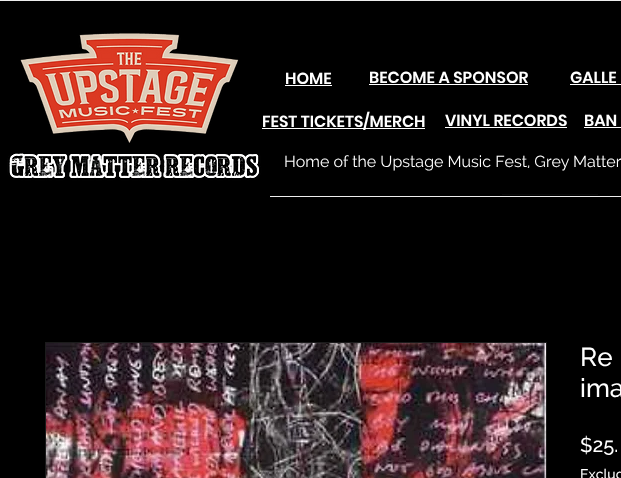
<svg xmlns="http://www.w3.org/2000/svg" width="621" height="478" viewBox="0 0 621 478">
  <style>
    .t1 { font: 600 16px Poppins; fill: #fff; }
    .t2 { font: 16px Raleway; fill: #fff; }
    .t3 { font: 500 26px Raleway; fill: #fff; }
    .t4 { font: 500 20px Raleway; fill: #fff; }
    .t5 { font: 500 14px Raleway; fill: #fff; }
  </style>
  <rect width="100%" height="100%" fill="#000"/>
  <rect x="0" y="0" width="621" height="1" fill="#ededed"/>
  <rect x="270" y="196" width="351" height="1" fill="#ededed"/>
  <image x="20" y="33" width="219" height="110" href="images/1.png"/>
  <text x="285" y="84" class="t1">HOME</text>
  <rect x="285" y="85" width="47" height="1" fill="#fff"/>
  <text x="369" y="83" class="t1">BECOME A SPONSOR</text>
  <rect x="369" y="84" width="159" height="1" fill="#fff"/>
  <text x="570" y="83" class="t1">GALLE</text>
  <rect x="570" y="84" width="51" height="1" fill="#fff"/>
  <rect x="262" y="128" width="163" height="1" fill="#fff"/>
  <text x="262" y="127" class="t1">FEST TICKETS/MERCH</text>
  <text x="445" y="126" class="t1">VINYL RECORDS</text>
  <rect x="445" y="127" width="122" height="1" fill="#fff"/>
  <text x="584" y="126" class="t1">BAN</text>
  <rect x="584" y="127" width="37" height="1" fill="#fff"/>
  <image x="0" y="153" width="270" height="44" href="images/2.png"/>
  <text x="284" y="167" class="t2">Home of the Upstage Music Fest, Grey Matter</text>
  <rect x="502" y="194" width="96" height="1" fill="#0a0a0a"/>
  <rect x="45.5" y="342.5" width="501" height="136" fill="none" stroke="#1b1b1b"/>
  <image x="46" y="343" width="500" height="135" href="images/3.png"/>
  <text x="580" y="366" class="t3">Re</text>
  <text x="580" y="397" class="t3">ima</text>
  <text x="580" y="452" class="t4">$25.</text>
  <text x="580" y="479" class="t5">Exclud</text>
</svg>
